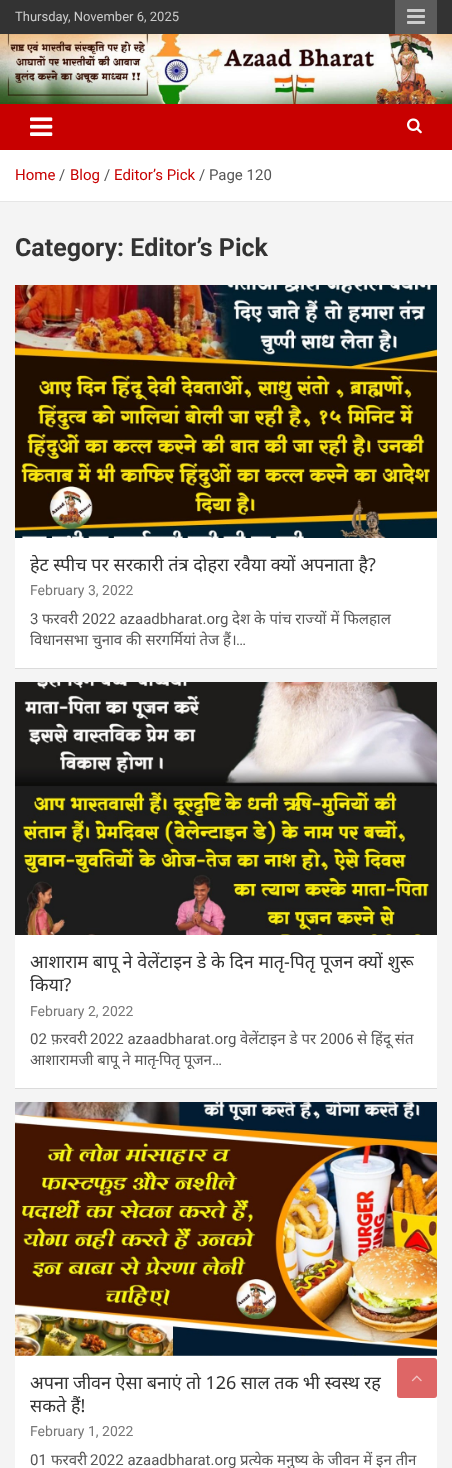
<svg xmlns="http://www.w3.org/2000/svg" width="452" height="1468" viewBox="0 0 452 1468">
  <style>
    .t1 { font: 13px Roboto; fill: #ccc; }
    .t2 { font: 15px Roboto; fill: #c80000; }
    .t3 { font: 15px Roboto; fill: #555; }
    .t4 { font: bold 25px Roboto; fill: #333; }
    .t5 { font: 18px Noto Sans; fill: #333; }
    .t6 { font: 14px Roboto; fill: #777; }
    .t7 { font: 15px Noto Sans; fill: #555; }
  </style>
  <rect width="100%" height="100%" fill="#f4f4f4"/>
  <rect x="0" y="0" width="452" height="34" fill="#333"/>
  <text x="15" y="21" class="t1">Thursday, November 6, 2025</text>
  <rect x="395" y="0" width="42" height="34" fill="#5c5c5c"/>
  <image x="407" y="9" width="18" height="15" href="images/1.png"/>
  <image x="0" y="34" width="452" height="70" href="images/2.png"/>
  <rect x="0" y="104" width="452" height="46" fill="#c80000"/>
  <image x="30" y="117" width="23" height="19" href="images/3.png"/>
  <image x="407" y="118" width="15" height="16" href="images/4.png"/>
  <rect x="0" y="150" width="452" height="51" fill="#fff"/>
  <rect x="0" y="201" width="452" height="1" fill="#e6e6e6"/>
  <text x="15" y="180" class="t2">Home</text>
  <text x="59" y="180" class="t3">/</text>
  <text x="70" y="180" class="t2">Blog</text>
  <text x="104" y="180" class="t3">/</text>
  <text x="114" y="180" class="t2">Editor’s Pick</text>
  <text x="199" y="180" class="t3">/ Page 120</text>
  <text x="15" y="256" class="t4">Category: Editor’s Pick</text>
  <rect x="15" y="286" width="422" height="383" fill="#0000001a" filter="blur(0.5px)"/>
  <rect x="15" y="538" width="422" height="130" fill="#fff"/>
  <image x="15" y="285" width="422" height="253" href="images/5.png"/>
  <text x="30" y="571" class="t5">हेट स्पीच पर सरकारी तंत्र दोहरा रवैया क्यों अपनाता है?</text>
  <text x="30" y="595" class="t6">February 3, 2022</text>
  <text x="30" y="624" class="t3">3</text>
  <text x="42" y="624" class="t7">फरवरी</text>
  <text x="82" y="624" class="t3">2022 azaadbharat.org</text>
  <text x="232" y="624" class="t7">देश के पांच राज्यों में फिलहाल</text>
  <text x="30" y="645" class="t7">विधानसभा चुनाव की सरगर्मियां तेज हैं।</text>
  <text x="236" y="645" class="t3">…</text>
  <rect x="15" y="683" width="422" height="406" fill="#0000001a" filter="blur(0.5px)"/>
  <rect x="15" y="935" width="422" height="153" fill="#fff"/>
  <image x="15" y="682" width="422" height="253" href="images/6.png"/>
  <text x="30" y="968" class="t5">आशाराम बापू ने वेलेंटाइन डे के दिन मातृ-पितृ पूजन क्यों शुरू</text>
  <text x="30" y="991" class="t5">किया?</text>
  <text x="30" y="1016" class="t6">February 2, 2022</text>
  <text x="30" y="1044" class="t3">02</text>
  <text x="51" y="1044" class="t7">फ़रवरी</text>
  <text x="90" y="1044" class="t3">2022 azaadbharat.org</text>
  <text x="240" y="1044" class="t7">वेलेंटाइन डे पर</text>
  <text x="320" y="1044" class="t3">2006</text>
  <text x="357" y="1044" class="t7">से हिंदू संत</text>
  <text x="30" y="1065" class="t7">आशारामजी बापू ने मातृ</text>
  <text x="155" y="1065" class="t3">-</text>
  <text x="159" y="1065" class="t7">पितृ पूजन</text>
  <text x="212" y="1065" class="t3">…</text>
  <rect x="15" y="1355" width="422" height="113" fill="#fff"/>
  <image x="15" y="1102" width="422" height="254" href="images/7.png"/>
  <text x="30" y="1389" word-spacing="-0.25" class="t5">अपना जीवन ऐसा बनाएं तो 126 साल तक भी स्वस्थ रह</text>
  <text x="30" y="1412" class="t5">सकते हैं!</text>
  <text x="30" y="1436" class="t6">February 1, 2022</text>
  <text x="30" y="1465" class="t3">01</text>
  <text x="51" y="1465" class="t7">फरवरी</text>
  <text x="90" y="1465" class="t3">2022 azaadbharat.org</text>
  <text x="240" y="1465" class="t7">प्रत्येक मनुष्य के जीवन में इन तीन</text>
  <rect x="397" y="1358" width="40" height="40" rx="3" fill="#de6666"/>
  <image x="411" y="1375" width="11" height="7" href="images/8.png"/>
</svg>
